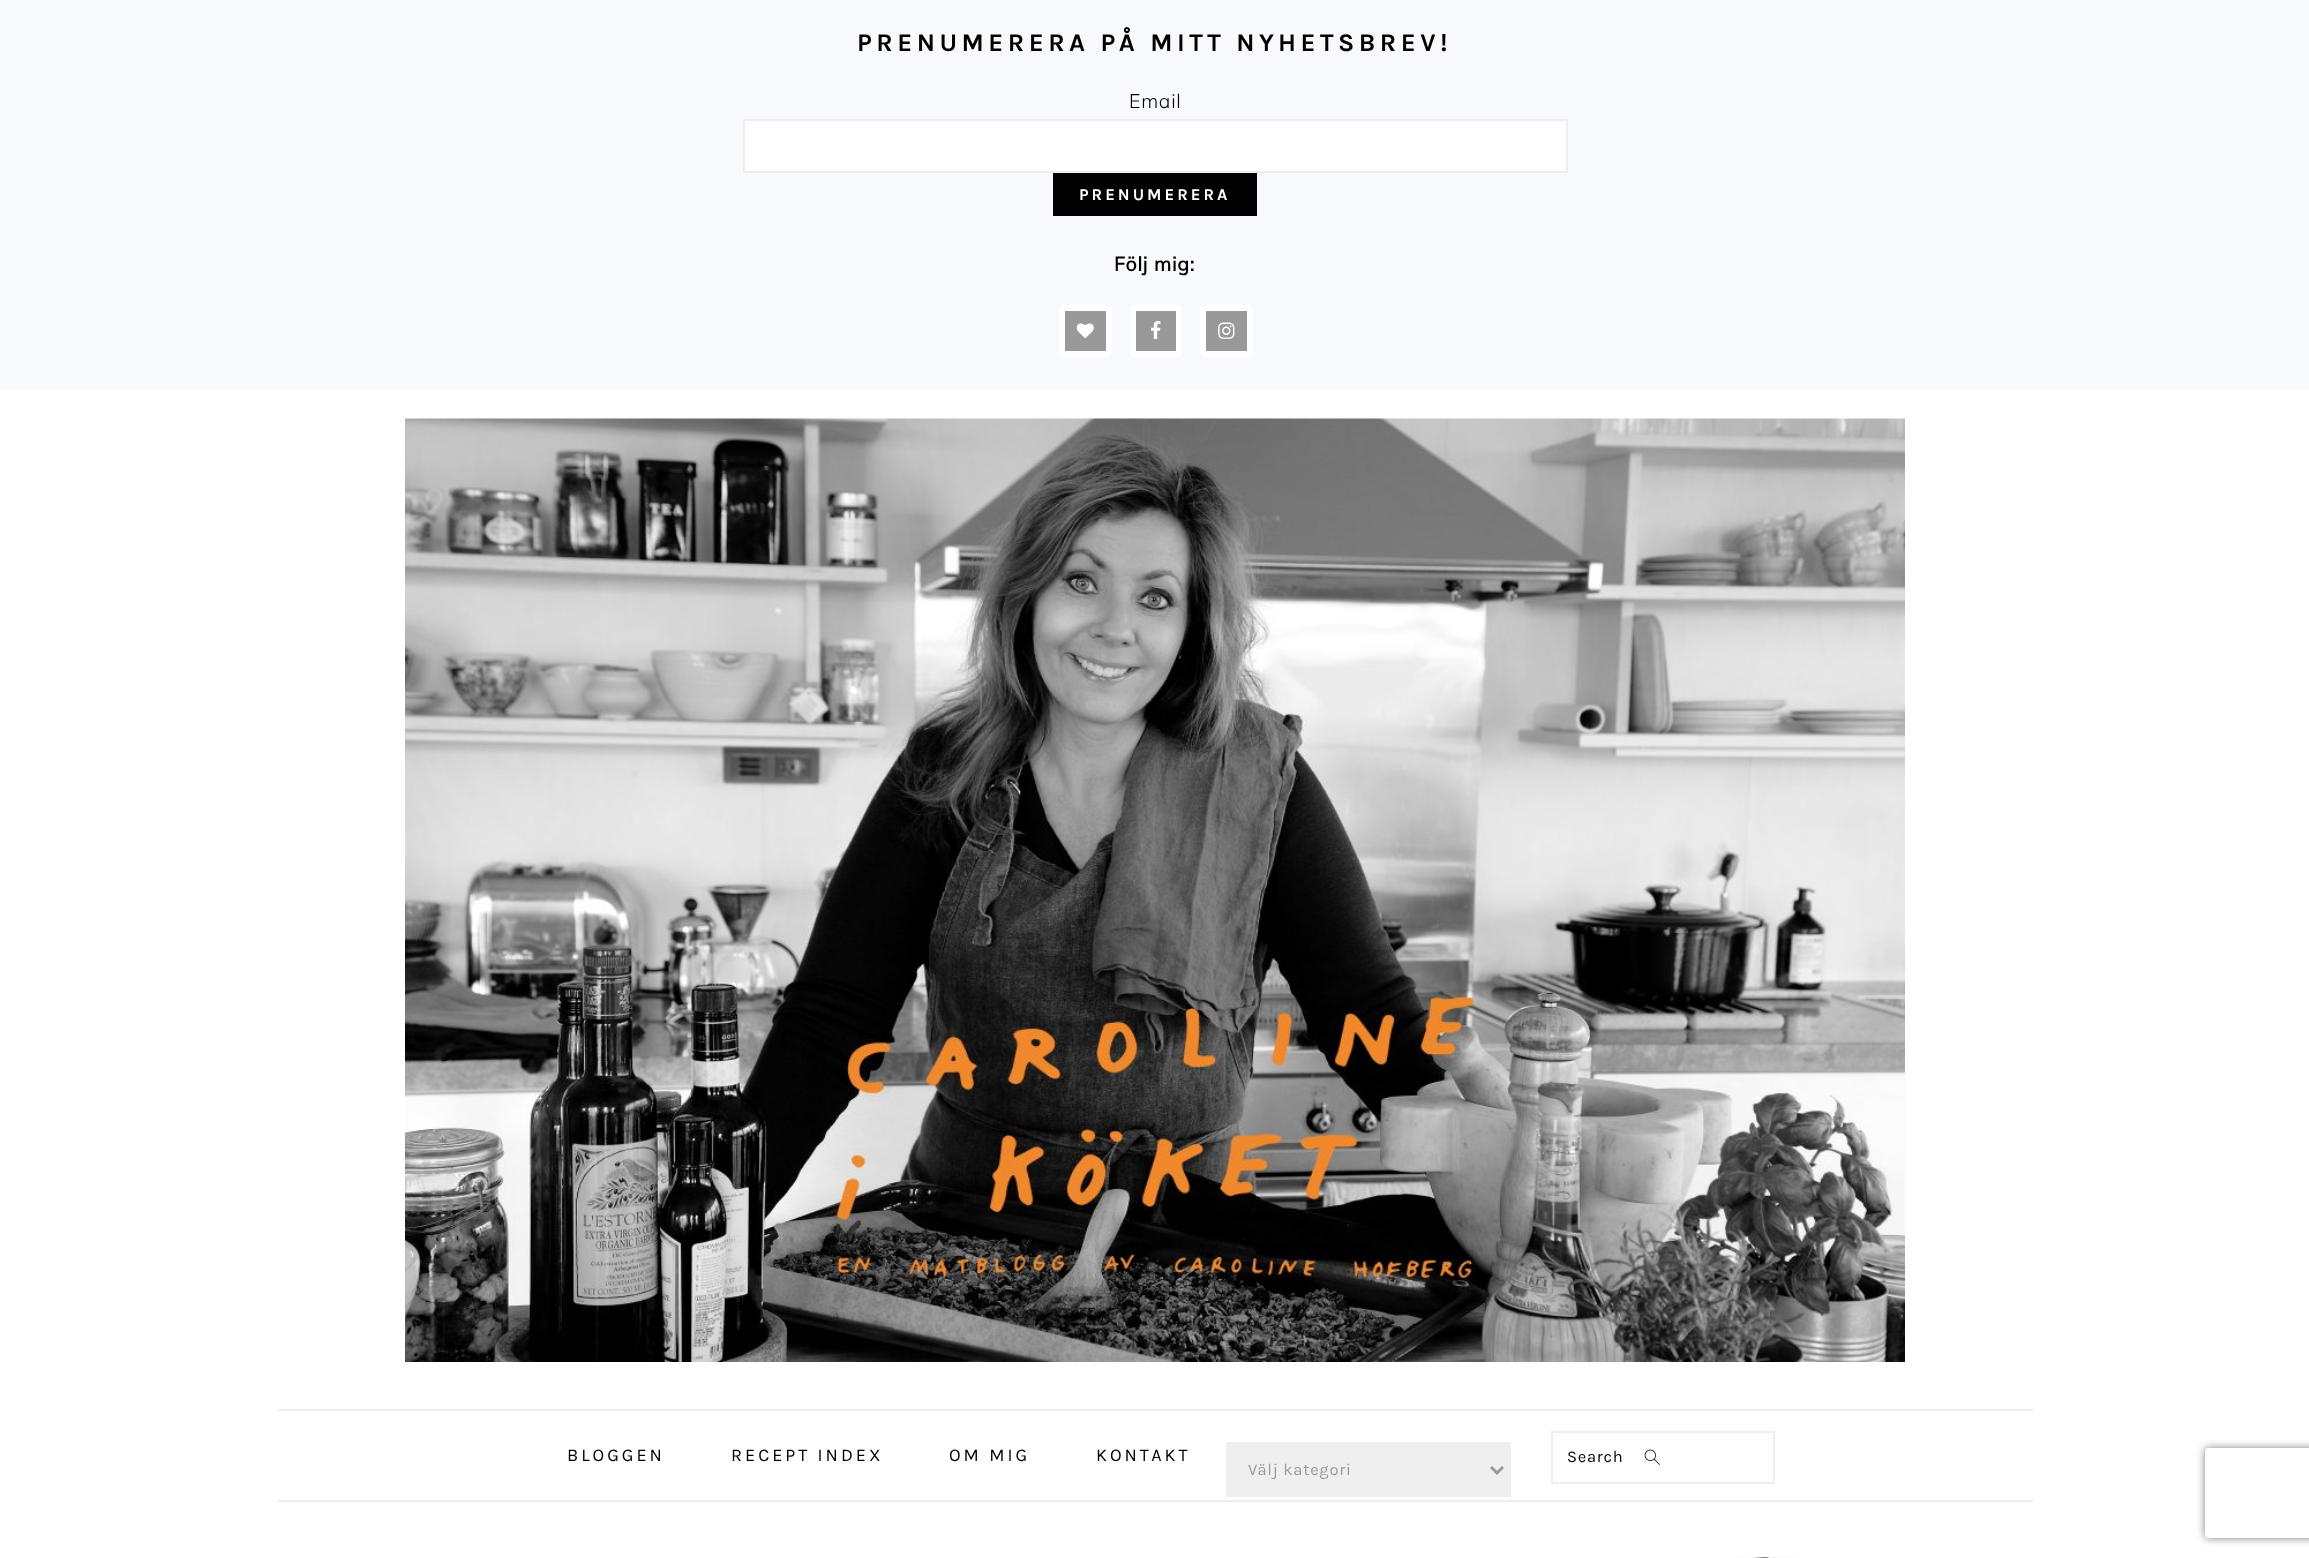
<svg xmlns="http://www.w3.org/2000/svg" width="2309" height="1558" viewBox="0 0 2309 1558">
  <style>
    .t1 { font: bold 25.5px Karla; letter-spacing: 4.5px; fill: #000; }
    .t2 { font: 300 19.5px Muli; letter-spacing: 0.75px; fill: #000; }
    .t3 { font: bold 16.5px Karla; letter-spacing: 3px; fill: #fff; }
    .t4 { font: bold 19.5px Muli; letter-spacing: 0.75px; fill: #000; }
    .t5 { font: 18px Karla; letter-spacing: 3px; fill: #000; }
    .t6 { font: 16.5px Karla; letter-spacing: 0.75px; fill: #000; }
    .t7 { font: 16.5px Karla; letter-spacing: 0.75px; fill: #999; }
  </style>
  <defs>
    <clipPath id="clip1"><path d="M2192 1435H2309V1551H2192ZM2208 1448H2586C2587.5 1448 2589 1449.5 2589 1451V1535C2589 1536.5 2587.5 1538 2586 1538H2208C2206.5 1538 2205 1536.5 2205 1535V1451C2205 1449.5 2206.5 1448 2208 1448Z" clip-rule="evenodd"/></clipPath>
  </defs>
  <rect width="100%" height="100%" fill="#fff"/>
  <rect x="0" y="0" width="2309" height="390" fill="#f7f9fc"/>
  <text x="857" y="51" class="t1">PRENUMERERA PÅ MITT NYHETSBREV!</text>
  <text x="1129" y="108" class="t2">Email</text>
  <rect x="744" y="120" width="823" height="52" fill="#fff" stroke="#eee" stroke-width="2"/>
  <rect x="1053" y="173" width="204" height="43" fill="#010101"/>
  <text x="1079" y="200" class="t3">PRENUMERERA</text>
  <text x="1114" y="271" class="t4">Följ mig:</text>
  <rect x="1062" y="308" width="47" height="46" rx="2" fill="#999" stroke="#fff" stroke-width="6"/>
  <image x="1076" y="323" width="18" height="15" href="images/1.png"/>
  <rect x="1133" y="308" width="46" height="46" rx="2" fill="#999" stroke="#fff" stroke-width="6"/>
  <image x="1151" y="321" width="10" height="18" href="images/2.png"/>
  <rect x="1203" y="308" width="47" height="46" rx="2" fill="#999" stroke="#fff" stroke-width="6"/>
  <image x="1218" y="322" width="17" height="17" href="images/3.png"/>
  <image x="405" y="418" width="1500" height="944" href="images/4.png"/>
  <rect x="278" y="1409" width="1755" height="2" fill="#eee"/>
  <rect x="278" y="1500" width="1755" height="2" fill="#eee"/>
  <text x="567" y="1461" class="t5">BLOGGEN</text>
  <text x="731" y="1461" class="t5">RECEPT INDEX</text>
  <text x="949" y="1461" class="t5">OM MIG</text>
  <text x="1096" y="1461" class="t5">KONTAKT</text>
  <rect x="1552" y="1432" width="222" height="51" fill="none" stroke="#eee" stroke-width="2"/>
  <image x="1644" y="1449" width="16" height="16" href="images/5.png"/>
  <text x="1567" y="1462" class="t6">Search</text>
  <rect x="1226" y="1442" width="285" height="55" fill="#efefef"/>
  <path d="M1491 1467L1497 1473L1503 1467" fill="none" stroke="#999" stroke-width="3"/>
  <text x="1248" y="1475" class="t7">Välj kategori</text>
  <image x="1737" y="1557" width="60" height="1" href="images/6.png"/>
  <g clip-path="url(#clip1)">
    <rect x="2205" y="1448" width="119" height="90" rx="3" fill="#808080" filter="blur(4px)"/>
  </g>
</svg>
